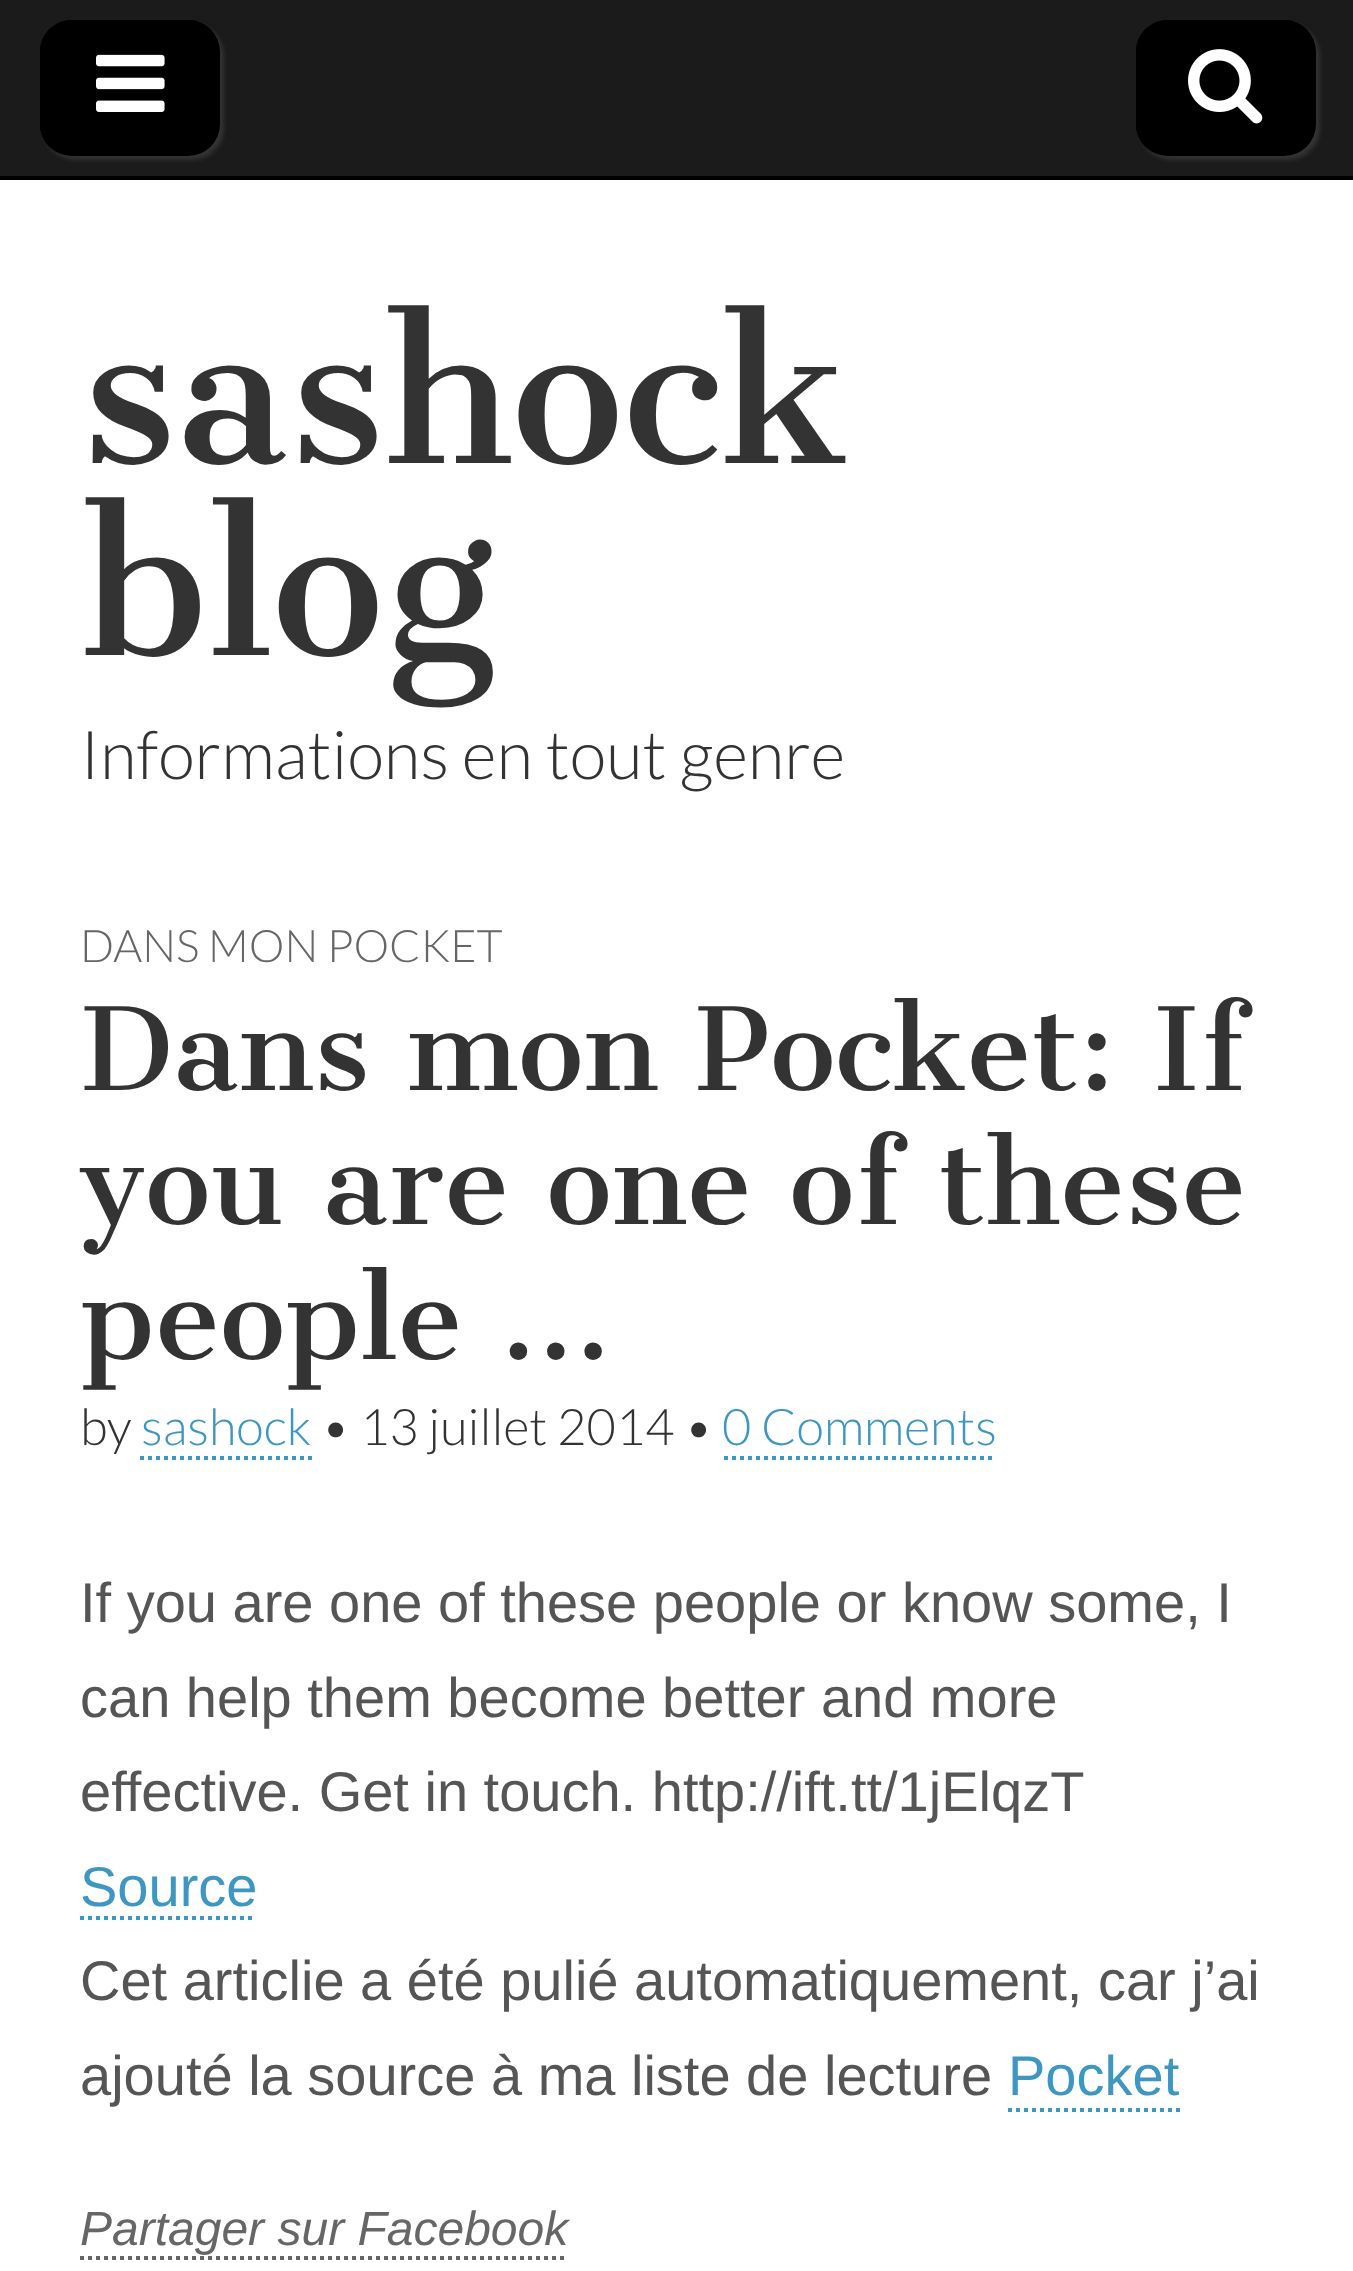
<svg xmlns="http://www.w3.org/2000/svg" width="1353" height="2271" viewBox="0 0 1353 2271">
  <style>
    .t1 { font: 192px Cantata One; fill: #333; }
    .t2 { font: 300 67.25px Lato; fill: #333; }
    .t3 { font: 300 44.75px Lato; fill: #666; }
    .t4 { font: 112px Cantata One; fill: #333; }
    .t5 { font: 300 50.5px Lato; fill: #333; }
    .t6 { font: 300 50.5px Lato; fill: #3d97c2; }
    .t7 { font: 56px Liberation Sans; fill: #555; }
    .t8 { font: 56px Liberation Sans; fill: #3d97c2; }
    .t9 { font: italic 48px Liberation Sans; fill: #666; }
  </style>
  <rect width="100%" height="100%" fill="#fff"/>
  <rect x="0" y="0" width="1353" height="176" fill="#1b1b1b"/>
  <rect x="0" y="176" width="1353" height="4" fill="#000"/>
  <rect x="44" y="24" width="180" height="136" rx="32" fill="#333" filter="blur(2px)"/>
  <rect x="40" y="20" width="180" height="136" rx="32" fill="#000"/>
  <path d="M76 24H192C200 24 206 27 212 31C206 24 198 20 188 20H72C54 20 40 34 40 52V124C40 134 44 142 51 148C47 142 44 136 44 128V56C44 38 58 24 76 24Z" fill="#000"/>
  <image x="96" y="54" width="69" height="58" href="images/1.png"/>
  <rect x="1140" y="24" width="180" height="136" rx="32" fill="#333" filter="blur(2px)"/>
  <rect x="1136" y="20" width="180" height="136" rx="32" fill="#000"/>
  <path d="M1172 24H1288C1296 24 1302 27 1308 31C1302 24 1294 20 1284 20H1168C1150 20 1136 34 1136 52V124C1136 134 1140 142 1147 148C1143 142 1140 136 1140 128V56C1140 38 1154 24 1172 24Z" fill="#000"/>
  <image x="1188" y="49" width="75" height="75" href="images/2.png"/>
  <text x="80" y="463" class="t1">sashock</text>
  <text x="80" y="655" class="t1">blog</text>
  <text x="80" y="779" class="t2">Informations en tout genre</text>
  <text x="80" y="962" class="t3">DANS MON POCKET</text>
  <text x="80" y="1090" class="t4">Dans mon Pocket: If</text>
  <text x="80" y="1224" class="t4">you are one of these</text>
  <text x="80" y="1359" class="t4">people …</text>
  <text x="80" y="1445" class="t5">by</text>
  <text x="141" y="1445" class="t6">sashock</text>
  <path d="M140 1458H312" fill="none" stroke="#3d97c2" stroke-width="4" stroke-dasharray="4 4"/>
  <text x="321" y="1445" class="t5">• 13 juillet 2014 •</text>
  <text x="722" y="1445" class="t6">0 Comments</text>
  <path d="M724 1458H996" fill="none" stroke="#3d97c2" stroke-width="4" stroke-dasharray="4 4"/>
  <text x="80" y="1622" class="t7">If you are one of these people or know some, I</text>
  <text x="80" y="1717" class="t7">can help them become better and more</text>
  <text x="80" y="1811" class="t7">effective. Get in touch. http://ift.tt/1jElqzT</text>
  <text x="80" y="1906" class="t8">Source</text>
  <path d="M80 1918H256" fill="none" stroke="#3d97c2" stroke-width="4" stroke-dasharray="4 4"/>
  <text x="80" y="2000" class="t7">Cet articlie a été pulié automatiquement, car j’ai</text>
  <text x="80" y="2095" class="t7">ajouté la source à ma liste de lecture</text>
  <text x="1008" y="2095" class="t8">Pocket</text>
  <path d="M1008 2110H1180" fill="none" stroke="#3d97c2" stroke-width="4" stroke-dasharray="4 4"/>
  <text x="80" y="2245" class="t9">Partager sur Facebook</text>
  <path d="M80 2258H568" fill="none" stroke="#666" stroke-width="4" stroke-dasharray="4 4"/>
</svg>
